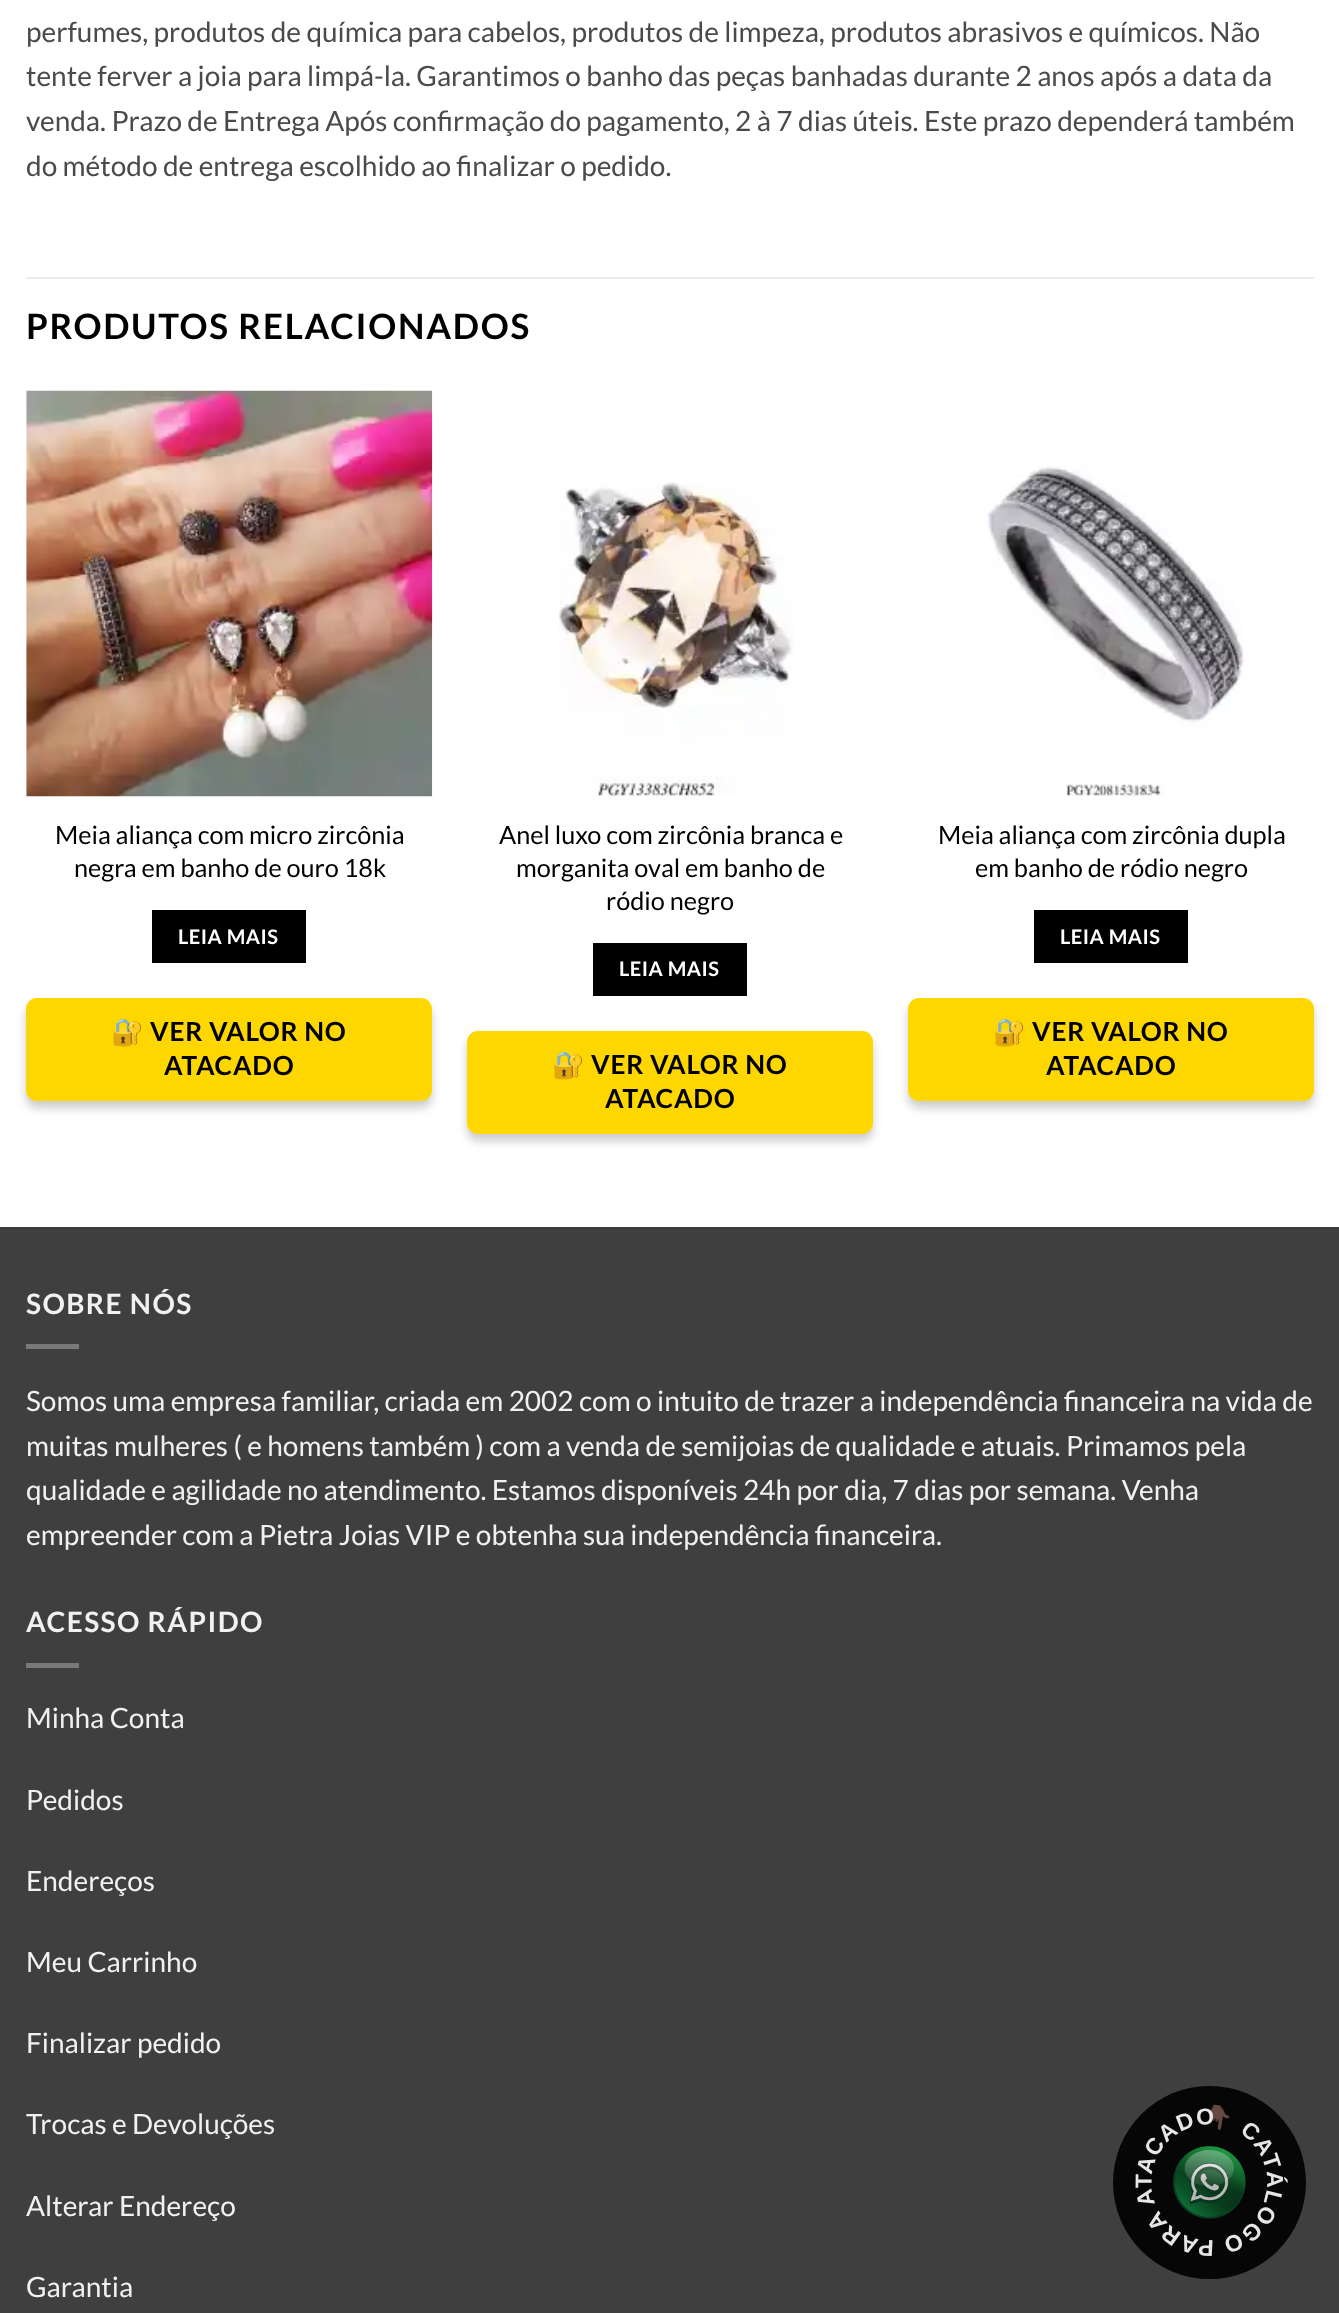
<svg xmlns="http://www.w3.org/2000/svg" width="1339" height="2313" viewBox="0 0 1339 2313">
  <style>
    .t1 { font: 28px Lato; fill: #4a4a4a; }
    .t2 { font: bold 35px Lato; letter-spacing: 1.75px; fill: #000; }
    .t3 { font: 25.25px Lato; fill: #000; }
    .t4 { font: bold 20px Lato; letter-spacing: 0.5px; fill: #fff; }
    .t5 { font: bold 26.25px Noto Color Emoji; letter-spacing: 0.75px; fill: #000; }
    .t6 { font: bold 26.25px Lato; letter-spacing: 0.75px; fill: #000; }
    .t7 { font: bold 28px Lato; letter-spacing: 1.4px; fill: #f1f1f1; }
    .t8 { font: 28px Lato; fill: #f1f1f1; }
  </style>
  <rect width="100%" height="100%" fill="#fff"/>
  <text x="26" y="42" class="t1">perfumes, produtos de química para cabelos, produtos de limpeza, produtos abrasivos e químicos. Não</text>
  <text x="26" y="86" class="t1">tente ferver a joia para limpá-la. Garantimos o banho das peças banhadas durante 2 anos após a data da</text>
  <text x="26" y="131" class="t1">venda. Prazo de Entrega Após confirmação do pagamento, 2 à 7 dias úteis. Este prazo dependerá também</text>
  <text x="26" y="176" class="t1">do método de entrega escolhido ao finalizar o pedido.</text>
  <rect x="26" y="277" width="1288" height="2" fill="#ececec"/>
  <text x="26" y="339" class="t2">PRODUTOS RELACIONADOS</text>
  <image x="26" y="390" width="407" height="407" href="images/1.png"/>
  <text x="55" y="844" class="t3">Meia aliança com micro zircônia</text>
  <text x="74" y="877" class="t3">negra em banho de ouro 18k</text>
  <rect x="152" y="910" width="154" height="53" fill="#000"/>
  <text x="178" y="944" class="t4">LEIA MAIS</text>
  <rect x="26" y="1005" width="406" height="103" rx="11" fill="#00000033" filter="blur(5px)"/>
  <rect x="26" y="998" width="406" height="103" rx="11" fill="#ffd700"/>
  <text x="111" y="1041" class="t5">🔐</text>
  <text x="150" y="1041" class="t6">VER VALOR NO</text>
  <text x="164" y="1075" class="t6">ATACADO</text>
  <image x="559" y="482" width="235" height="315" href="images/2.png"/>
  <text x="499" y="844" class="t3">Anel luxo com zircônia branca e</text>
  <text x="516" y="877" class="t3">morganita oval em banho de</text>
  <text x="606" y="910" class="t3">ródio negro</text>
  <rect x="593" y="943" width="154" height="53" fill="#000"/>
  <text x="619" y="976" class="t4">LEIA MAIS</text>
  <rect x="467" y="1038" width="406" height="103" rx="11" fill="#00000033" filter="blur(5px)"/>
  <rect x="467" y="1031" width="406" height="103" rx="11" fill="#ffd700"/>
  <text x="552" y="1074" class="t5">🔐</text>
  <text x="591" y="1074" class="t6">VER VALOR NO</text>
  <text x="605" y="1108" class="t6">ATACADO</text>
  <image x="987" y="465" width="257" height="332" href="images/3.png"/>
  <text x="938" y="844" class="t3">Meia aliança com zircônia dupla</text>
  <text x="975" y="877" class="t3">em banho de ródio negro</text>
  <rect x="1034" y="910" width="154" height="53" fill="#000"/>
  <text x="1060" y="944" class="t4">LEIA MAIS</text>
  <rect x="908" y="1005" width="406" height="103" rx="11" fill="#00000033" filter="blur(5px)"/>
  <rect x="908" y="998" width="406" height="103" rx="11" fill="#ffd700"/>
  <text x="993" y="1041" class="t5">🔐</text>
  <text x="1032" y="1041" class="t6">VER VALOR NO</text>
  <text x="1046" y="1075" class="t6">ATACADO</text>
  <rect x="0" y="1229" width="1339" height="1084" fill="#3f3f3f"/>
  <rect x="0" y="1227" width="1339" height="2" fill="#3c3c3c"/>
  <text x="26" y="1314" class="t7">SOBRE NÓS</text>
  <rect x="26" y="1344" width="53" height="5" fill="#797979"/>
  <text x="26" y="1411" class="t8">Somos uma empresa familiar, criada em 2002 com o intuito de trazer a independência financeira na vida de</text>
  <text x="26" y="1456" class="t8">muitas mulheres ( e homens também ) com a venda de semijoias de qualidade e atuais. Primamos pela</text>
  <text x="26" y="1500" class="t8">qualidade e agilidade no atendimento. Estamos disponíveis 24h por dia, 7 dias por semana. Venha</text>
  <text x="26" y="1545" class="t8">empreender com a Pietra Joias VIP e obtenha sua independência financeira.</text>
  <text x="26" y="1632" class="t7">ACESSO RÁPIDO</text>
  <rect x="26" y="1663" width="53" height="5" fill="#797979"/>
  <text x="26" y="1728" class="t8">Minha Conta</text>
  <text x="26" y="1810" class="t8">Pedidos</text>
  <text x="26" y="1891" class="t8">Endereços</text>
  <text x="26" y="1972" class="t8">Meu Carrinho</text>
  <text x="26" y="2053" class="t8">Finalizar pedido</text>
  <text x="26" y="2134" class="t8">Trocas e Devoluções</text>
  <text x="26" y="2216" class="t8">Alterar Endereço</text>
  <text x="26" y="2297" class="t8">Garantia</text>
  <circle cx="1209.5" cy="2182.5" r="96.5" fill="#060606"/>
  <image x="1135" y="2104" width="153" height="152" href="images/4.png"/>
  <image x="1173" y="2146" width="73" height="73" href="images/5.png"/>
</svg>
